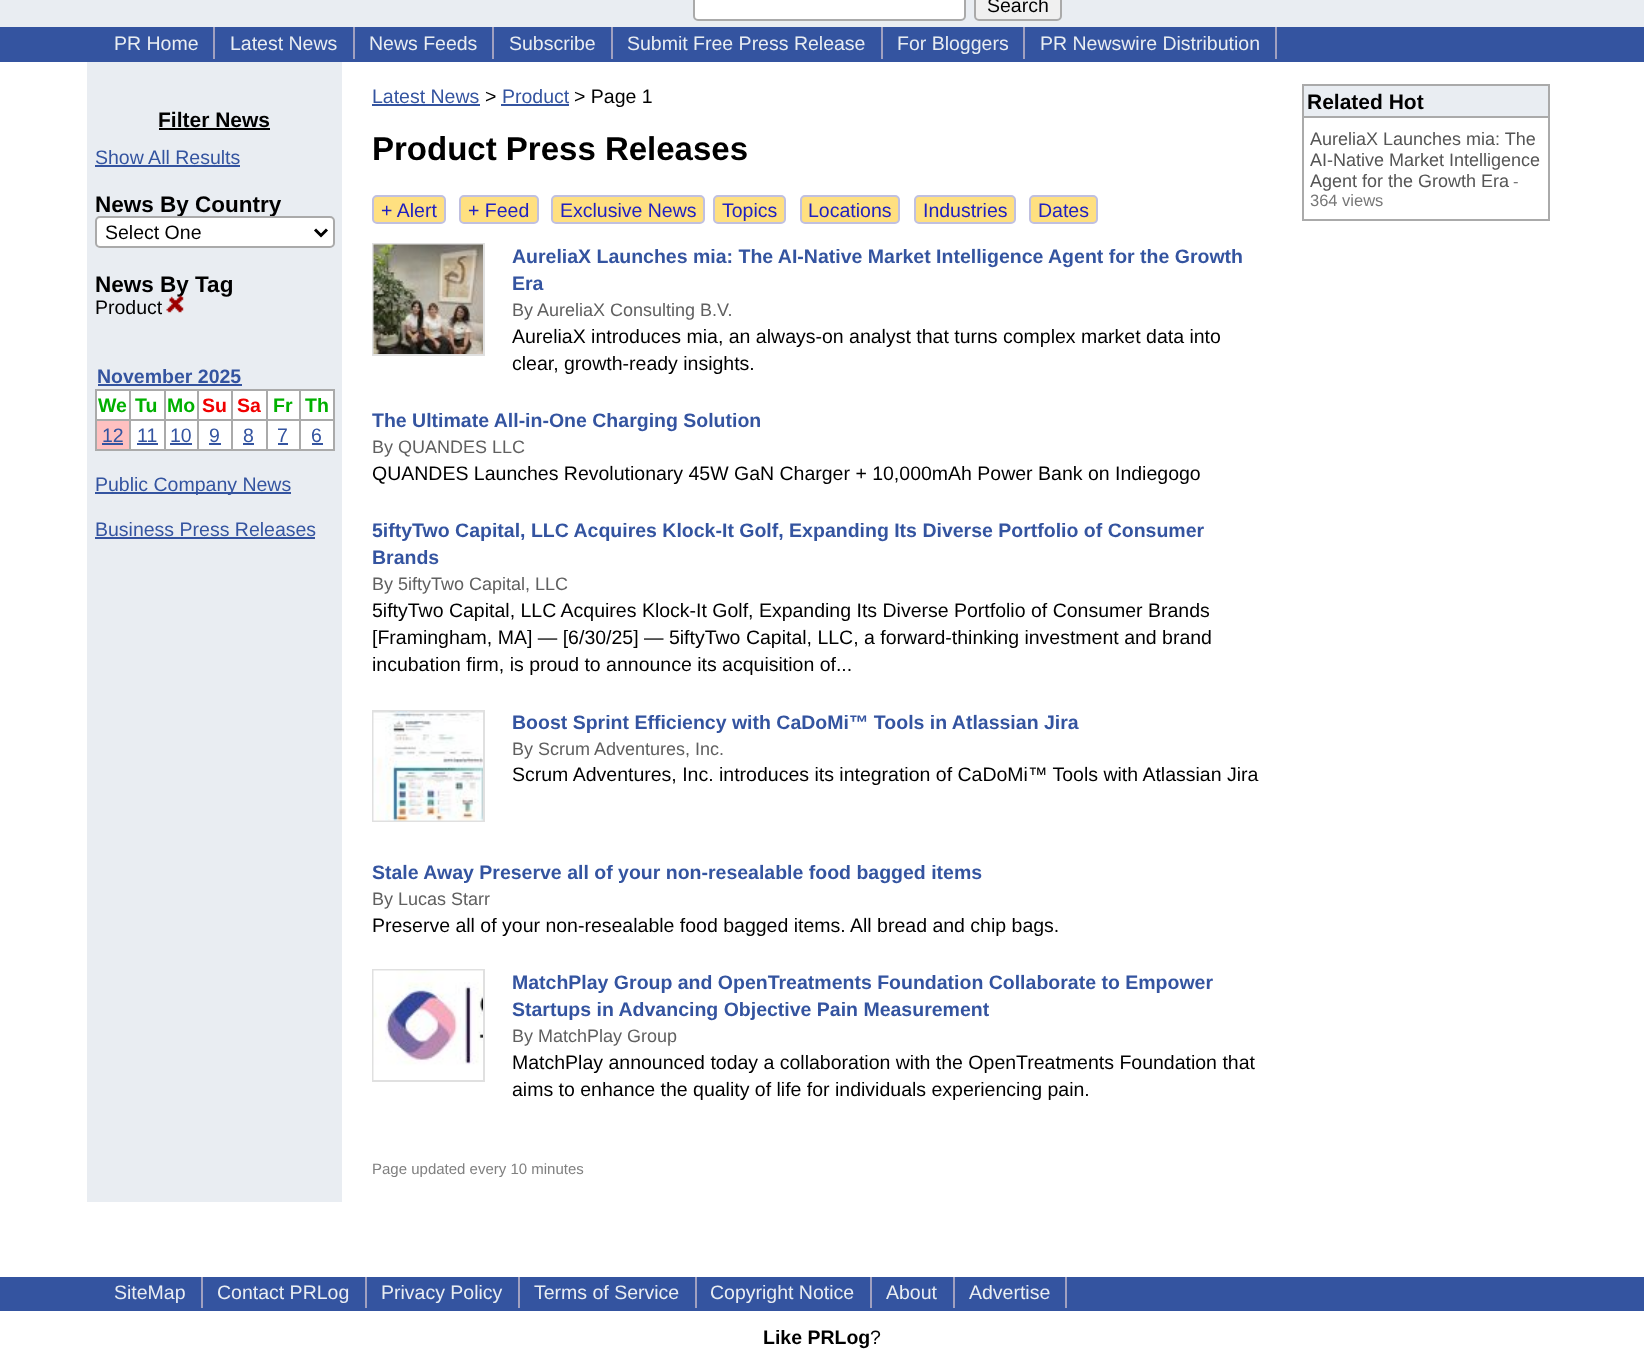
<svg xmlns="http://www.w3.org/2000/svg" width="1644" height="1359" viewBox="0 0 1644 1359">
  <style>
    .t1 { font: 19.5px Liberation Sans; fill: #000; }
    .t2 { font: 19.5px Liberation Sans; fill: #e9edf2; }
    .t3 { font: bold 21px Liberation Sans; fill: #000; }
    .t4 { font: 19.5px Liberation Sans; fill: #3454a0; }
    .t5 { font: bold 22.5px Liberation Sans; fill: #000; }
    .t6 { font: bold 19.5px Liberation Sans; fill: #3454a0; }
    .t7 { font: bold 19.5px Liberation Sans; fill: #00b000; }
    .t8 { font: bold 19.5px Liberation Sans; fill: #f00000; }
    .t9 { font: bold 33px Liberation Sans; fill: #000; }
    .t10 { font: 19.5px Liberation Sans; fill: #2020c0; }
    .t11 { font: 18px Liberation Sans; fill: #606060; }
    .t12 { font: 15px Liberation Sans; fill: #808080; }
    .t13 { font: 18px Liberation Sans; fill: #555; }
    .t14 { font: 16.5px Liberation Sans; fill: #777; }
    .t15 { font: bold 19.5px Liberation Sans; fill: #000; }
  </style>
  <rect width="100%" height="100%" fill="#fff"/>
  <rect x="0" y="0" width="1644" height="27" fill="#e9edf2"/>
  <rect x="694" y="-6" width="271" height="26" rx="4" fill="#fff" stroke="#aaa" stroke-width="2"/>
  <rect x="975" y="-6" width="86" height="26" rx="4" fill="#f0f0f0" stroke="#aaa" stroke-width="2"/>
  <text x="987" y="12" class="t1">Search</text>
  <rect x="0" y="27" width="1644" height="35" fill="#3454a0"/>
  <rect x="213" y="27" width="2" height="32" fill="#a0a0c0"/>
  <text x="114" y="50" class="t2">PR Home</text>
  <rect x="353" y="27" width="2" height="32" fill="#a0a0c0"/>
  <text x="230" y="50" class="t2">Latest News</text>
  <rect x="492" y="27" width="2" height="32" fill="#a0a0c0"/>
  <text x="369" y="50" class="t2">News Feeds</text>
  <rect x="611" y="27" width="2" height="32" fill="#a0a0c0"/>
  <text x="509" y="50" class="t2">Subscribe</text>
  <rect x="881" y="27" width="2" height="32" fill="#a0a0c0"/>
  <text x="627" y="50" class="t2">Submit Free Press Release</text>
  <rect x="1023" y="27" width="2" height="32" fill="#a0a0c0"/>
  <text x="897" y="50" class="t2">For Bloggers</text>
  <rect x="1275" y="27" width="2" height="32" fill="#a0a0c0"/>
  <text x="1040" y="50" class="t2">PR Newswire Distribution</text>
  <rect x="87" y="62" width="255" height="1140" fill="#e9edf2"/>
  <text x="158" y="127" class="t3">Filter News</text>
  <rect x="159" y="128" width="111" height="2" fill="#000"/>
  <text x="95" y="164" class="t4">Show All Results</text>
  <rect x="95" y="165" width="145" height="2" fill="#3454a0"/>
  <text x="95" y="212" class="t5">News By Country</text>
  <rect x="96" y="217" width="238" height="30" rx="4" fill="#fff" stroke="#aaa" stroke-width="2"/>
  <path d="M315 229.5L321 235.5L327 229.5" fill="none" stroke="#000" stroke-width="3"/>
  <text x="105" y="239" class="t1">Select One</text>
  <text x="95" y="292" class="t5">News By Tag</text>
  <text x="95" y="314" class="t1">Product</text>
  <image x="166" y="295" width="18" height="18" href="images/1.png"/>
  <text x="97" y="383" class="t6">November 2025</text>
  <rect x="98" y="384" width="144" height="2" fill="#3454a0"/>
  <rect x="97" y="391" width="32" height="28" fill="#fff"/>
  <rect x="299" y="389" width="36" height="2" fill="#aaa"/>
  <rect x="299" y="419" width="36" height="2" fill="#aaa"/>
  <rect x="333" y="419" width="2" height="31" fill="#aaa"/>
  <rect x="299" y="449" width="36" height="2" fill="#aaa"/>
  <rect x="299" y="419" width="2" height="31" fill="#aaa"/>
  <rect x="266" y="419" width="34" height="2" fill="#aaa"/>
  <rect x="299" y="389" width="2" height="31" fill="#aaa"/>
  <rect x="266" y="389" width="34" height="2" fill="#aaa"/>
  <rect x="266" y="449" width="34" height="2" fill="#aaa"/>
  <rect x="266" y="419" width="2" height="31" fill="#aaa"/>
  <rect x="231" y="419" width="36" height="2" fill="#aaa"/>
  <rect x="266" y="389" width="2" height="31" fill="#aaa"/>
  <rect x="231" y="389" width="36" height="2" fill="#aaa"/>
  <rect x="231" y="449" width="36" height="2" fill="#aaa"/>
  <rect x="231" y="419" width="2" height="31" fill="#aaa"/>
  <rect x="197" y="419" width="36" height="2" fill="#aaa"/>
  <rect x="231" y="389" width="2" height="31" fill="#aaa"/>
  <rect x="197" y="389" width="36" height="2" fill="#aaa"/>
  <rect x="197" y="449" width="36" height="2" fill="#aaa"/>
  <rect x="197" y="419" width="2" height="31" fill="#aaa"/>
  <rect x="164" y="419" width="34" height="2" fill="#aaa"/>
  <rect x="197" y="389" width="2" height="31" fill="#aaa"/>
  <rect x="164" y="389" width="34" height="2" fill="#aaa"/>
  <rect x="164" y="449" width="34" height="2" fill="#aaa"/>
  <rect x="164" y="419" width="2" height="31" fill="#aaa"/>
  <rect x="129" y="419" width="36" height="2" fill="#aaa"/>
  <rect x="164" y="389" width="2" height="31" fill="#aaa"/>
  <rect x="129" y="389" width="36" height="2" fill="#aaa"/>
  <rect x="129" y="449" width="36" height="2" fill="#aaa"/>
  <rect x="129" y="419" width="2" height="31" fill="#aaa"/>
  <rect x="95" y="419" width="36" height="2" fill="#aaa"/>
  <rect x="129" y="389" width="2" height="31" fill="#aaa"/>
  <rect x="95" y="389" width="36" height="2" fill="#aaa"/>
  <rect x="95" y="449" width="36" height="2" fill="#aaa"/>
  <rect x="95" y="419" width="2" height="31" fill="#aaa"/>
  <rect x="95" y="389" width="2" height="31" fill="#aaa"/>
  <text x="98" y="412" class="t7">We</text>
  <rect x="131" y="391" width="33" height="28" fill="#fff"/>
  <text x="135" y="412" class="t7">Tu</text>
  <rect x="166" y="391" width="31" height="28" fill="#fff"/>
  <text x="167" y="412" class="t7">Mo</text>
  <rect x="199" y="391" width="32" height="28" fill="#fff"/>
  <text x="202" y="412" class="t8">Su</text>
  <rect x="233" y="391" width="33" height="28" fill="#fff"/>
  <text x="237" y="412" class="t8">Sa</text>
  <rect x="268" y="391" width="31" height="28" fill="#fff"/>
  <text x="273" y="412" class="t7">Fr</text>
  <rect x="301" y="391" width="32" height="28" fill="#fff"/>
  <rect x="333" y="389" width="2" height="31" fill="#aaa"/>
  <text x="305" y="412" class="t7">Th</text>
  <rect x="97" y="421" width="32" height="28" fill="#ffc0c0"/>
  <text x="102" y="442" class="t4">12</text>
  <rect x="102" y="443" width="21" height="2" fill="#3454a0"/>
  <rect x="131" y="421" width="33" height="28" fill="#fff"/>
  <text x="137" y="442" class="t4">11</text>
  <rect x="137" y="443" width="21" height="2" fill="#3454a0"/>
  <rect x="166" y="421" width="31" height="28" fill="#fff"/>
  <text x="170" y="442" class="t4">10</text>
  <rect x="170" y="443" width="22" height="2" fill="#3454a0"/>
  <rect x="199" y="421" width="32" height="28" fill="#fff"/>
  <text x="209" y="442" class="t4">9</text>
  <rect x="209" y="443" width="12" height="2" fill="#3454a0"/>
  <rect x="233" y="421" width="33" height="28" fill="#fff"/>
  <text x="243" y="442" class="t4">8</text>
  <rect x="243" y="443" width="11" height="2" fill="#3454a0"/>
  <rect x="268" y="421" width="31" height="28" fill="#fff"/>
  <text x="277" y="442" class="t4">7</text>
  <rect x="278" y="443" width="10" height="2" fill="#3454a0"/>
  <rect x="301" y="421" width="32" height="28" fill="#fff"/>
  <text x="311" y="442" class="t4">6</text>
  <rect x="312" y="443" width="11" height="2" fill="#3454a0"/>
  <rect x="95" y="492" width="196" height="2" fill="#3454a0"/>
  <text x="95" y="491" class="t4">Public Company News</text>
  <text x="95" y="536" class="t4">Business Press Releases</text>
  <rect x="95" y="537" width="220" height="2" fill="#3454a0"/>
  <text x="372" y="103" class="t4">Latest News</text>
  <rect x="372" y="104" width="108" height="2" fill="#3454a0"/>
  <text x="485" y="103" class="t1">&gt;</text>
  <text x="502" y="103" class="t4">Product</text>
  <rect x="501" y="104" width="68" height="2" fill="#3454a0"/>
  <text x="574" y="103" class="t1">&gt; Page 1</text>
  <text x="372" y="160" class="t9">Product Press Releases</text>
  <rect x="373" y="196" width="72" height="27" rx="4" fill="#ffe080" stroke="#c0c0e0" stroke-width="2"/>
  <text x="381" y="217" class="t10">+ Alert</text>
  <rect x="460" y="196" width="78" height="27" rx="4" fill="#ffe080" stroke="#c0c0e0" stroke-width="2"/>
  <text x="468" y="217" class="t10">+ Feed</text>
  <rect x="552" y="196" width="152" height="27" rx="4" fill="#ffe080" stroke="#c0c0e0" stroke-width="2"/>
  <text x="560" y="217" class="t10">Exclusive News</text>
  <rect x="714" y="196" width="71" height="27" rx="4" fill="#ffe080" stroke="#c0c0e0" stroke-width="2"/>
  <text x="722" y="217" class="t10">Topics</text>
  <rect x="801" y="196" width="98" height="27" rx="4" fill="#ffe080" stroke="#c0c0e0" stroke-width="2"/>
  <text x="808" y="217" class="t10">Locations</text>
  <rect x="915" y="196" width="100" height="27" rx="4" fill="#ffe080" stroke="#c0c0e0" stroke-width="2"/>
  <text x="923" y="217" class="t10">Industries</text>
  <rect x="1030" y="196" width="67" height="27" rx="4" fill="#ffe080" stroke="#c0c0e0" stroke-width="2"/>
  <text x="1038" y="217" class="t10">Dates</text>
  <rect x="373" y="244" width="111" height="111" fill="none" stroke="#e0e0e0" stroke-width="2"/>
  <image x="373" y="244" width="110" height="110" href="images/2.png"/>
  <text x="512" y="263" class="t6">AureliaX Launches mia: The AI-Native Market Intelligence Agent for the Growth</text>
  <text x="512" y="290" class="t6">Era</text>
  <text x="512" y="316" class="t11">By AureliaX Consulting B.V.</text>
  <text x="512" y="343" class="t1">AureliaX introduces mia, an always-on analyst that turns complex market data into</text>
  <text x="512" y="370" class="t1">clear, growth-ready insights.</text>
  <text x="372" y="427" class="t6">The Ultimate All-in-One Charging Solution</text>
  <text x="372" y="453" class="t11">By QUANDES LLC</text>
  <text x="372" y="480" class="t1">QUANDES Launches Revolutionary 45W GaN Charger + 10,000mAh Power Bank on Indiegogo</text>
  <text x="372" y="537" class="t6">5iftyTwo Capital, LLC Acquires Klock-It Golf, Expanding Its Diverse Portfolio of Consumer</text>
  <text x="372" y="564" class="t6">Brands</text>
  <text x="372" y="590" class="t11">By 5iftyTwo Capital, LLC</text>
  <text x="372" y="617" class="t1">5iftyTwo Capital, LLC Acquires Klock-It Golf, Expanding Its Diverse Portfolio of Consumer Brands</text>
  <text x="372" y="644" class="t1">[Framingham, MA] — [6/30/25] — 5iftyTwo Capital, LLC, a forward-thinking investment and brand</text>
  <text x="372" y="671" class="t1">incubation firm, is proud to announce its acquisition of...</text>
  <rect x="373" y="711" width="111" height="110" fill="none" stroke="#e0e0e0" stroke-width="2"/>
  <image x="373" y="711" width="110" height="110" href="images/3.png"/>
  <text x="512" y="729" class="t6">Boost Sprint Efficiency with CaDoMi™ Tools in Atlassian Jira</text>
  <text x="512" y="755" class="t11">By Scrum Adventures, Inc.</text>
  <text x="512" y="781" class="t1">Scrum Adventures, Inc. introduces its integration of CaDoMi™ Tools with Atlassian Jira</text>
  <text x="372" y="879" class="t6">Stale Away Preserve all of your non-resealable food bagged items</text>
  <text x="372" y="905" class="t11">By Lucas Starr</text>
  <text x="372" y="932" class="t1">Preserve all of your non-resealable food bagged items. All bread and chip bags.</text>
  <rect x="373" y="970" width="111" height="111" fill="none" stroke="#e0e0e0" stroke-width="2"/>
  <image x="373" y="970" width="110" height="110" href="images/4.png"/>
  <text x="512" y="989" class="t6">MatchPlay Group and OpenTreatments Foundation Collaborate to Empower</text>
  <text x="512" y="1016" class="t6">Startups in Advancing Objective Pain Measurement</text>
  <text x="512" y="1042" class="t11">By MatchPlay Group</text>
  <text x="512" y="1069" class="t1">MatchPlay announced today a collaboration with the OpenTreatments Foundation that</text>
  <text x="512" y="1096" class="t1">aims to enhance the quality of life for individuals experiencing pain.</text>
  <text x="372" y="1174" class="t12">Page updated every 10 minutes</text>
  <rect x="1304" y="86" width="244" height="30" fill="#e9edf2"/>
  <rect x="1302" y="84" width="248" height="2" fill="#aaa"/>
  <rect x="1302" y="116" width="248" height="2" fill="#aaa"/>
  <rect x="1548" y="116" width="2" height="105" fill="#aaa"/>
  <rect x="1548" y="84" width="2" height="33" fill="#aaa"/>
  <rect x="1302" y="219" width="248" height="2" fill="#aaa"/>
  <rect x="1302" y="116" width="2" height="105" fill="#aaa"/>
  <rect x="1302" y="84" width="2" height="33" fill="#aaa"/>
  <text x="1307" y="109" class="t3">Related Hot</text>
  <text x="1310" y="145" class="t13">AureliaX Launches mia: The</text>
  <text x="1310" y="166" class="t13">AI-Native Market Intelligence</text>
  <text x="1310" y="187" class="t13">Agent for the Growth Era</text>
  <text x="1513" y="187" class="t14">-</text>
  <text x="1310" y="206" class="t14">364 views</text>
  <rect x="0" y="1277" width="1644" height="34" fill="#3454a0"/>
  <rect x="201" y="1277" width="2" height="31" fill="#a0a0c0"/>
  <text x="114" y="1299" class="t2">SiteMap</text>
  <rect x="365" y="1277" width="2" height="31" fill="#a0a0c0"/>
  <text x="217" y="1299" class="t2">Contact PRLog</text>
  <rect x="518" y="1277" width="2" height="31" fill="#a0a0c0"/>
  <text x="381" y="1299" class="t2">Privacy Policy</text>
  <rect x="695" y="1277" width="2" height="31" fill="#a0a0c0"/>
  <text x="534" y="1299" class="t2">Terms of Service</text>
  <rect x="870" y="1277" width="2" height="31" fill="#a0a0c0"/>
  <text x="710" y="1299" class="t2">Copyright Notice</text>
  <rect x="953" y="1277" width="2" height="31" fill="#a0a0c0"/>
  <text x="886" y="1299" class="t2">About</text>
  <rect x="1065" y="1277" width="2" height="31" fill="#a0a0c0"/>
  <text x="969" y="1299" class="t2">Advertise</text>
  <text x="763" y="1344" class="t15">Like PRLog</text>
  <text x="870" y="1344" class="t1">?</text>
</svg>
